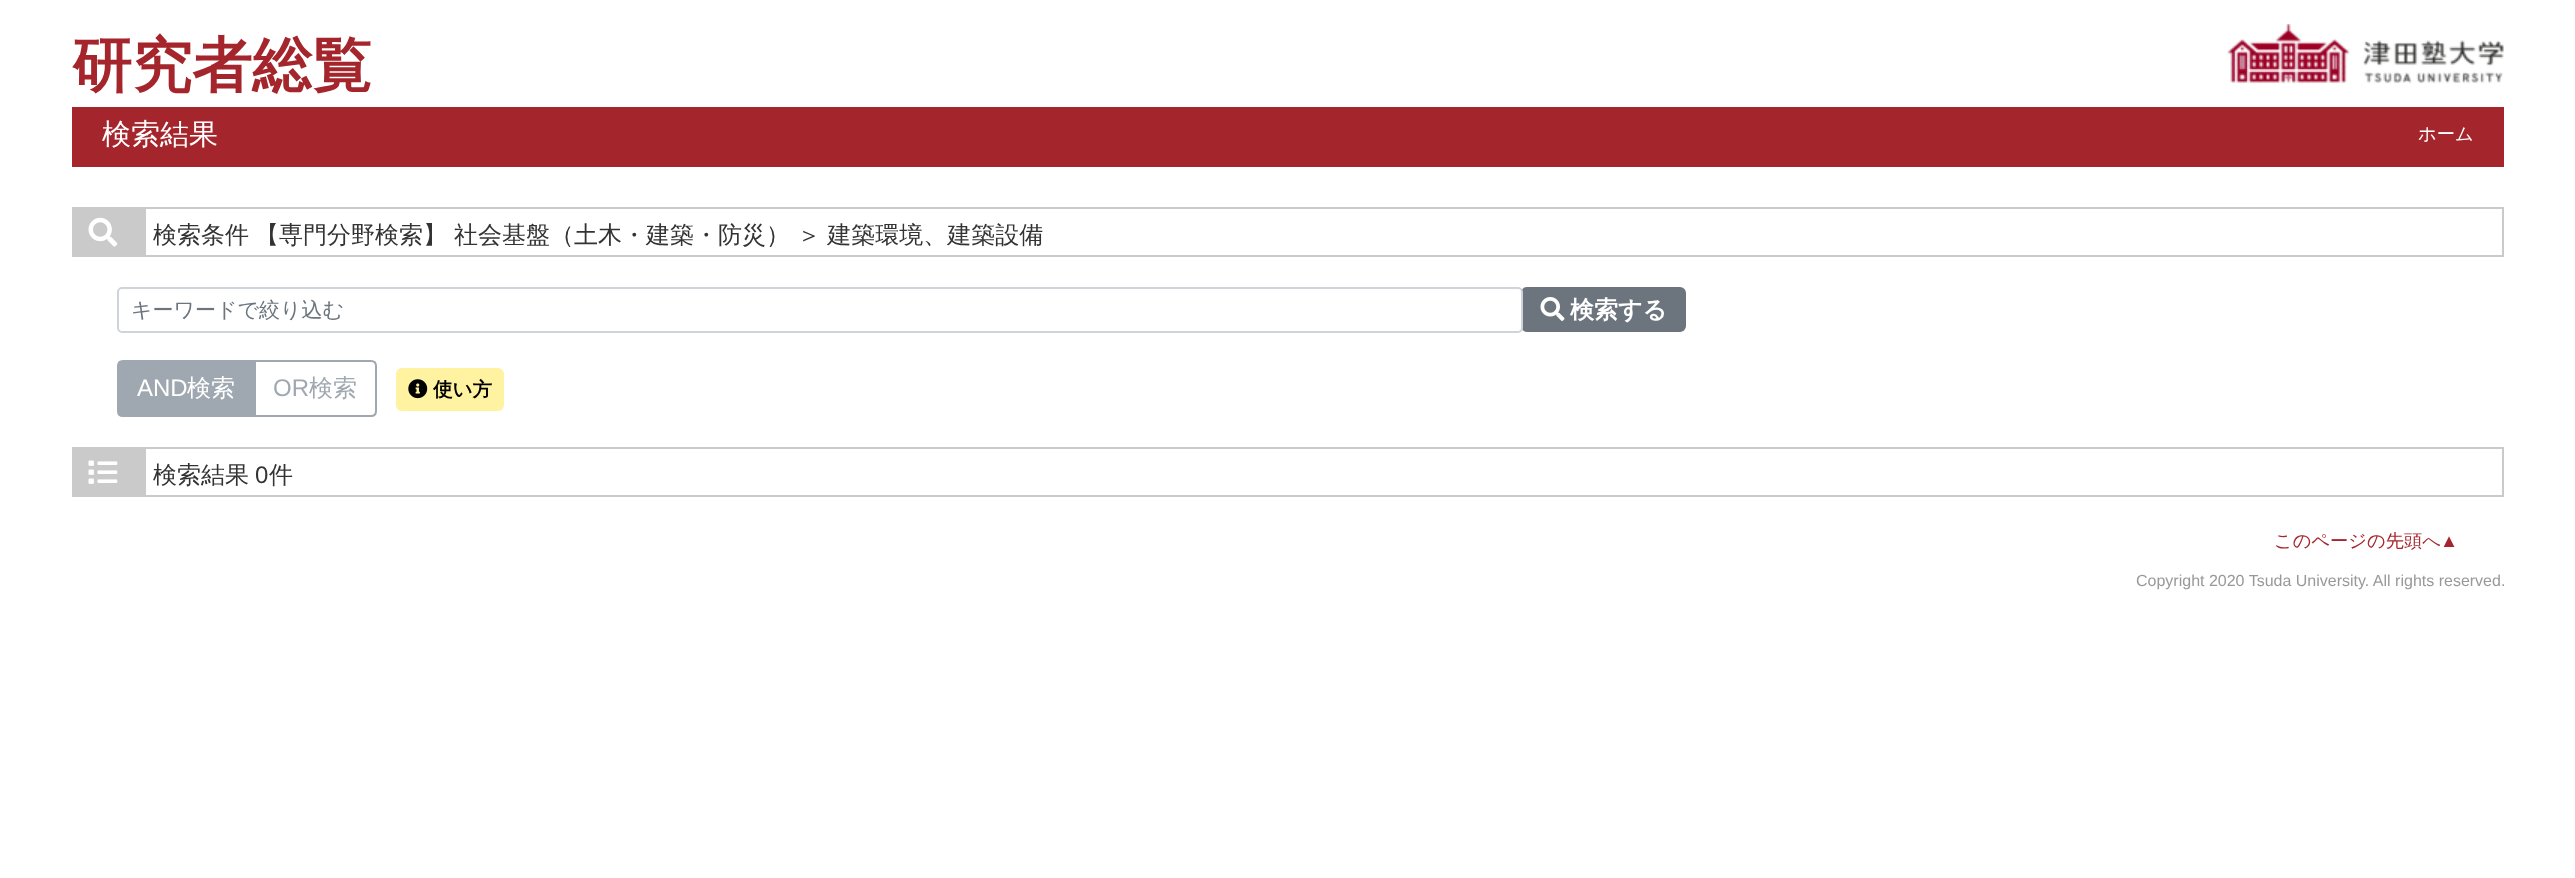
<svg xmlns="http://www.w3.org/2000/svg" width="2575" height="878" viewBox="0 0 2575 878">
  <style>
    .t1 { font: bold 60px WenQuanYi Zen Hei; fill: #a5252d; }
    .t2 { font: 500 29px WenQuanYi Zen Hei; fill: #fff; }
    .t3 { font: 500 18.25px WenQuanYi Zen Hei; fill: #fff; }
    .t4 { font: 500 24px WenQuanYi Zen Hei; fill: #333; }
    .t5 { font: 500 21px WenQuanYi Zen Hei; fill: #6c757d; }
    .t6 { font: bold 24px WenQuanYi Zen Hei; fill: #fff; }
    .t7 { font: 24px Liberation Sans; fill: #fff; }
    .t8 { font: 500 24px WenQuanYi Zen Hei; fill: #fff; }
    .t9 { font: 24px Liberation Sans; fill: #9fa8b0; }
    .t10 { font: 500 24px WenQuanYi Zen Hei; fill: #9fa8b0; }
    .t11 { font: bold 19.5px WenQuanYi Zen Hei; fill: #000; }
    .t12 { font: 24px Liberation Sans; fill: #333; }
    .t13 { font: 500 18.25px WenQuanYi Zen Hei; fill: #a5252d; }
    .t14 { font: 18.25px Liberation Sans; fill: #a5252d; }
    .t15 { font: 16px Liberation Sans; fill: #999; }
  </style>
  <rect width="100%" height="100%" fill="#fff"/>
  <text x="72" y="86" class="t1">研究者総覧</text>
  <image x="2227" y="24" width="277" height="60" href="images/1.png"/>
  <rect x="72" y="107" width="2432" height="60" fill="#a5252d"/>
  <text x="102" y="144" class="t2">検索結果</text>
  <text x="2418" y="140" class="t3">ホーム</text>
  <rect x="73" y="208" width="2430" height="48" fill="none" stroke="#cacaca" stroke-width="2"/>
  <rect x="74" y="209" width="72" height="46" fill="#cacaca"/>
  <image x="88" y="217" width="30" height="30" href="images/2.png"/>
  <text x="153" y="243" class="t4">検索条件</text>
  <text x="255" y="243" class="t4">【専門分野検索】</text>
  <text x="454" y="243" class="t4">社会基盤（土木・建築・防災）</text>
  <text x="797" y="243" word-spacing="-1" class="t4">＞ 建築環境、建築設備</text>
  <rect x="1522" y="288" width="163" height="43" rx="5" fill="#6c757d" stroke="#6c757d" stroke-width="2"/>
  <rect x="118" y="288" width="1404" height="44" rx="4" fill="none" stroke="#ced4da" stroke-width="2"/>
  <text x="131" y="317" class="t5">キーワードで絞り込む</text>
  <image x="1540" y="297" width="25" height="24" href="images/3.png"/>
  <text x="1570" y="318" class="t6">検索する</text>
  <path d="M255 361H371C374 361 376 363 376 366V411C376 414 374 416 371 416H255Z" fill="none" stroke="#9fa8b0" stroke-width="2"/>
  <path d="M123 361H254V416H123C120 416 118 414 118 411V366C118 363 120 361 123 361Z" fill="#9fa8b0" stroke="#9fa8b0" stroke-width="2"/>
  <text x="137" y="396" class="t7">AND</text>
  <text x="187" y="396" class="t8">検索</text>
  <text x="273" y="396" class="t9">OR</text>
  <text x="309" y="396" class="t10">検索</text>
  <rect x="396" y="368" width="108" height="43" rx="6" fill="#fff2a0"/>
  <image x="408" y="379" width="20" height="20" href="images/4.png"/>
  <text x="433" y="396" class="t11">使い方</text>
  <rect x="73" y="448" width="2430" height="48" fill="none" stroke="#cacaca" stroke-width="2"/>
  <rect x="74" y="449" width="72" height="46" fill="#cacaca"/>
  <image x="88" y="460" width="30" height="24" href="images/5.png"/>
  <text x="153" y="483" class="t4">検索結果</text>
  <text x="255" y="483" class="t12">0</text>
  <text x="269" y="483" class="t4">件</text>
  <text x="2274" y="547" class="t13">このページの先頭へ</text>
  <text x="2440" y="547" class="t14">▲</text>
  <text x="2136" y="586" class="t15">Copyright 2020 Tsuda University. All rights reserved.</text>
</svg>
